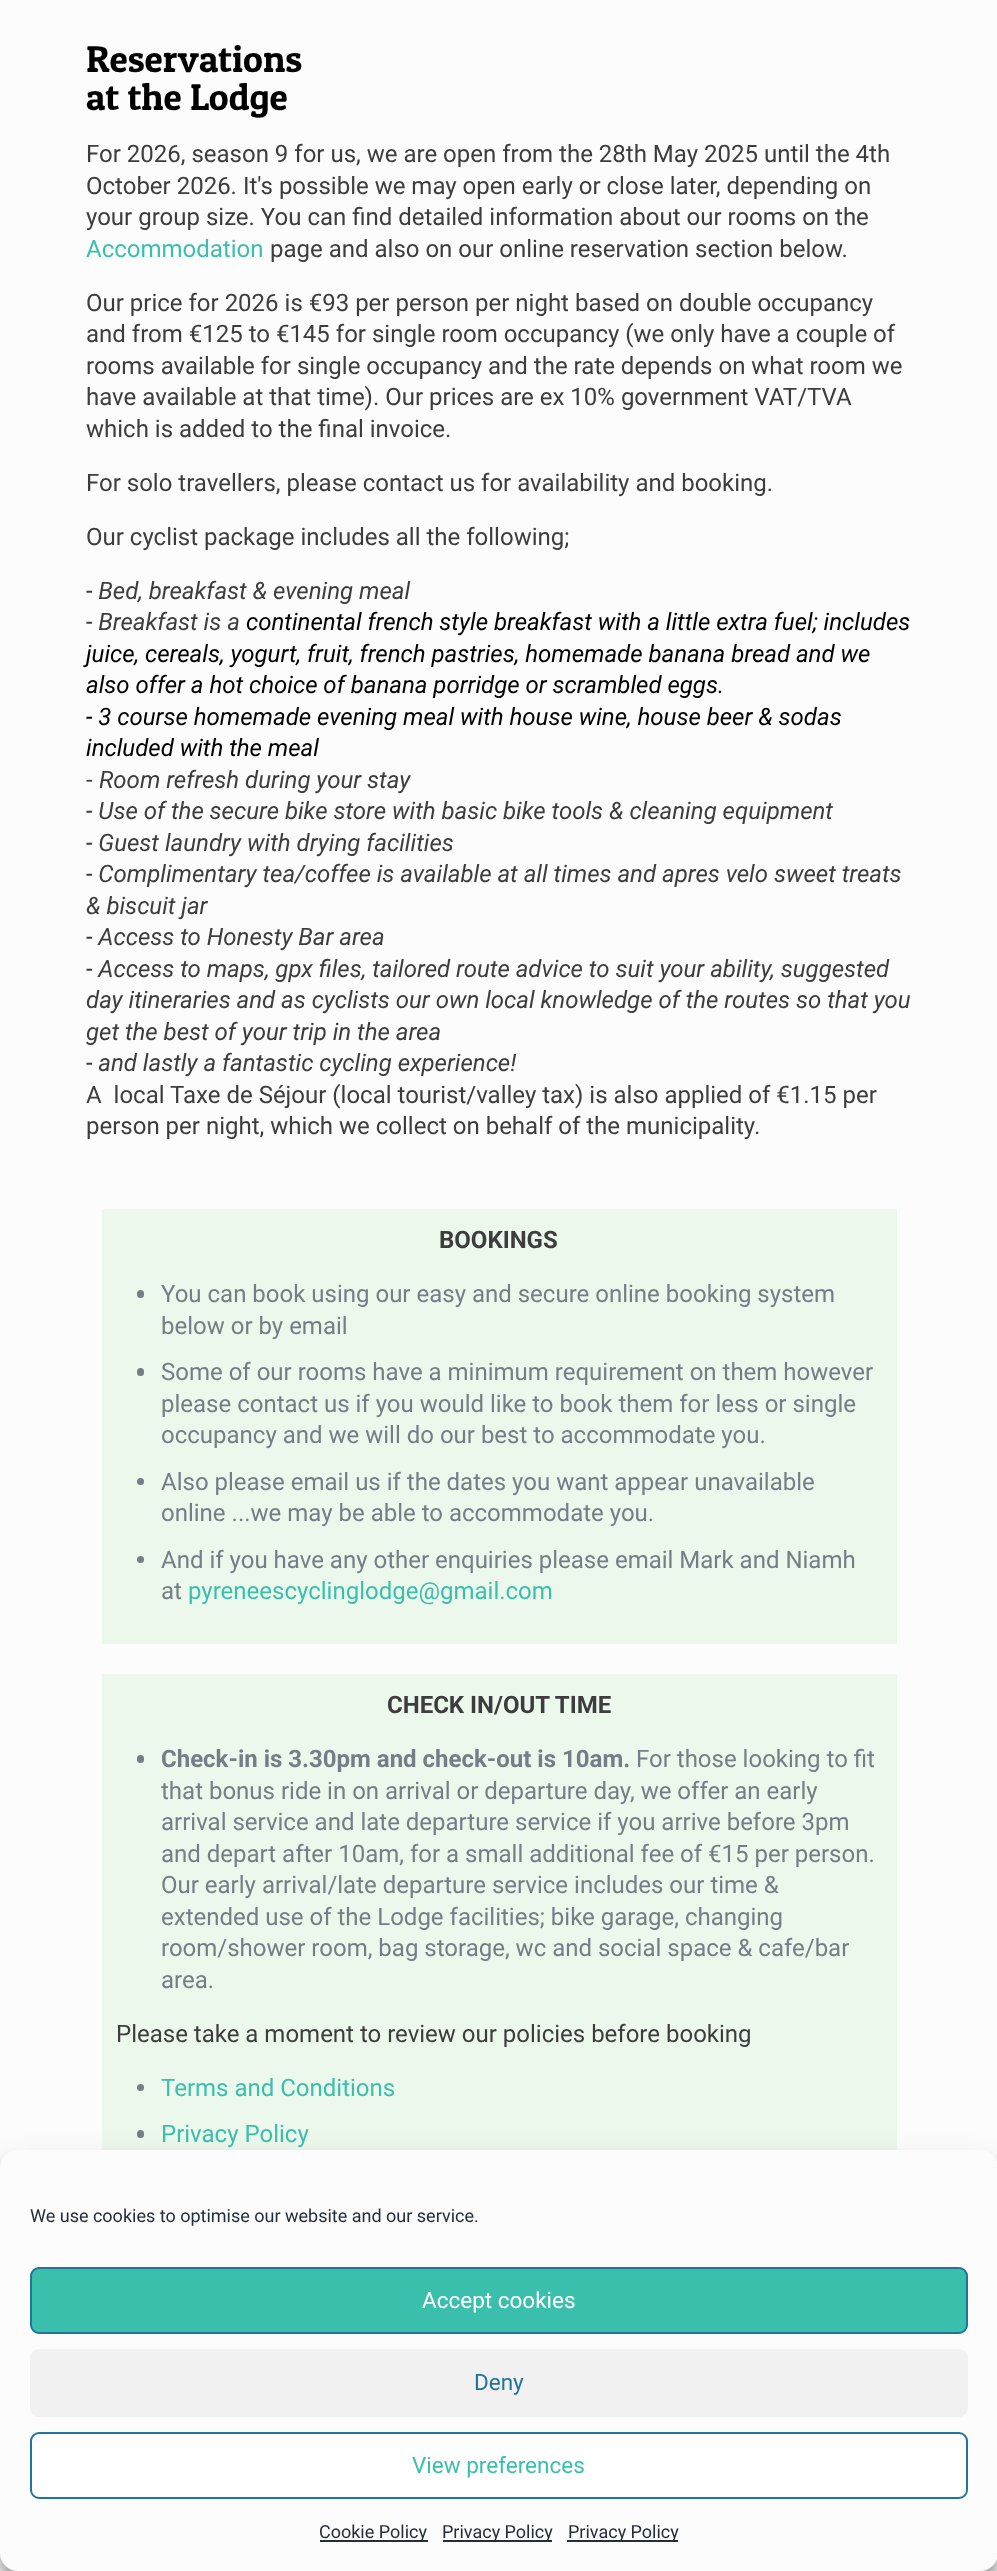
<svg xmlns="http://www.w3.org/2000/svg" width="997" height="2571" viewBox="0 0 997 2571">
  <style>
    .t1 { font: 37.5px Patua One; fill: #000; }
    .t2 { font: 24px Roboto; fill: #3d3d3d; }
    .t3 { font: 24px Roboto; fill: #3bbfad; }
    .t4 { font: italic 24px Roboto; fill: #3d3d3d; }
    .t5 { font: italic 24px Roboto; fill: #000; }
    .t6 { font: bold 24px Roboto; fill: #3d3d3d; }
    .t7 { font: 24px Roboto; fill: #737e86; }
    .t8 { font: bold 24px Roboto; fill: #737e86; }
    .t9 { font: 18px Roboto; fill: #242e3a; }
    .t10 { font: 22.5px Roboto; fill: #fff; }
    .t11 { font: 22.5px Roboto; fill: #21759b; }
    .t12 { font: 22.5px Roboto; fill: #3bbfad; }
  </style>
  <rect width="100%" height="100%" fill="#fcfcfc"/>
  <text x="86" y="72" class="t1">Reservations</text>
  <text x="86" y="110" class="t1">at the Lodge</text>
  <text x="86" y="162" class="t2">For 2026, season 9 for us, we are open from the 28th May 2025 until the 4th</text>
  <text x="86" y="194" class="t2">October 2026. It's possible we may open early or close later, depending on</text>
  <text x="86" y="225" class="t2">your group size. You can find detailed information about our rooms on the</text>
  <text x="86" y="257" class="t3">Accommodation</text>
  <text x="270" y="257" class="t2">page and also on our online reservation section below.</text>
  <text x="86" y="311" class="t2">Our price for 2026 is €93 per person per night based on double occupancy</text>
  <text x="86" y="342" class="t2">and from €125 to €145 for single room occupancy (we only have a couple of</text>
  <text x="86" y="374" class="t2">rooms available for single occupancy and the rate depends on what room we</text>
  <text x="86" y="405" class="t2">have available at that time). Our prices are ex 10% government VAT/TVA</text>
  <text x="86" y="437" class="t2">which is added to the final invoice.</text>
  <text x="86" y="491" class="t2">For solo travellers, please contact us for availability and booking.</text>
  <text x="86" y="545" class="t2">Our cyclist package includes all the following;</text>
  <text x="86" y="599" class="t4">- Bed, breakfast &amp; evening meal</text>
  <text x="86" y="630" class="t4">- Breakfast is a</text>
  <text x="246" y="630" class="t5">continental french style breakfast with a little extra fuel; includes</text>
  <text x="86" y="662" class="t5">juice, cereals, yogurt, fruit, french pastries, homemade banana bread and we</text>
  <text x="86" y="693" class="t5">also offer a hot choice of banana porridge or scrambled eggs.</text>
  <text x="86" y="725" class="t5">- 3 course homemade evening meal with house wine, house beer &amp; sodas</text>
  <text x="86" y="756" class="t5">included with the meal</text>
  <text x="86" y="788" class="t2">-</text>
  <text x="99" y="788" class="t4">Room refresh during your stay</text>
  <text x="86" y="819" class="t4">- Use of the secure bike store with basic bike tools &amp; cleaning equipment</text>
  <text x="86" y="851" class="t4">- Guest laundry with drying facilities</text>
  <text x="86" y="882" class="t4">- Complimentary tea/coffee is available at all times and apres velo sweet treats</text>
  <text x="86" y="914" class="t4">&amp; biscuit jar</text>
  <text x="86" y="945" class="t4">- Access to Honesty Bar area</text>
  <text x="86" y="977" class="t4">- Access to maps, gpx files, tailored route advice to suit your ability, suggested</text>
  <text x="86" y="1008" class="t4">day itineraries and as cyclists our own local knowledge of the routes so that you</text>
  <text x="86" y="1040" class="t4">get the best of your trip in the area</text>
  <text x="86" y="1071" class="t4">- and lastly a fantastic cycling experience!</text>
  <text x="86" y="1103" class="t2" xml:space="preserve">A  local Taxe de Séjour (local tourist/valley tax) is also applied of €1.15 per</text>
  <text x="86" y="1134" class="t2">person per night, which we collect on behalf of the municipality.</text>
  <rect x="102" y="1209" width="795" height="435" fill="#ecf8ec"/>
  <text x="439" y="1248" class="t6">BOOKINGS</text>
  <rect x="137" y="1290" width="7" height="8" rx="3.5" fill="#737e86"/>
  <text x="161" y="1302" class="t7">You can book using our easy and secure online booking system</text>
  <text x="161" y="1334" class="t7">below or by email</text>
  <rect x="137" y="1368" width="7" height="8" rx="3.5" fill="#737e86"/>
  <text x="161" y="1380" class="t7">Some of our rooms have a minimum requirement on them however</text>
  <text x="161" y="1412" class="t7">please contact us if you would like to book them for less or single</text>
  <text x="161" y="1443" class="t7">occupancy and we will do our best to accommodate you.</text>
  <circle cx="140.5" cy="1481.5" r="3.5" fill="#737e86"/>
  <text x="161" y="1490" class="t7">Also please email us if the dates you want appear unavailable</text>
  <text x="161" y="1521" class="t7">online ...we may be able to accommodate you.</text>
  <circle cx="140.5" cy="1559.5" r="3.5" fill="#737e86"/>
  <text x="161" y="1568" class="t7">And if you have any other enquiries please email Mark and Niamh</text>
  <text x="161" y="1599" class="t7">at</text>
  <text x="188" y="1599" class="t3">pyreneescyclinglodge@gmail.com</text>
  <rect x="102" y="1674" width="795" height="476" fill="#ecf8ec"/>
  <text x="387" y="1713" class="t6">CHECK IN/OUT TIME</text>
  <rect x="137" y="1755" width="7" height="8" rx="3.5" fill="#737e86"/>
  <text x="161" y="1767" class="t8">Check-in is 3.30pm and check-out is 10am.</text>
  <text x="636" y="1767" class="t7">For those looking to fit</text>
  <text x="161" y="1799" class="t7">that bonus ride in on arrival or departure day, we offer an early</text>
  <text x="161" y="1830" class="t7">arrival service and late departure service if you arrive before 3pm</text>
  <text x="161" y="1862" class="t7">and depart after 10am, for a small additional fee of €15 per person.</text>
  <text x="161" y="1893" class="t7">Our early arrival/late departure service includes our time &amp;</text>
  <text x="161" y="1925" class="t7">extended use of the Lodge facilities; bike garage, changing</text>
  <text x="161" y="1956" class="t7">room/shower room, bag storage, wc and social space &amp; cafe/bar</text>
  <text x="161" y="1988" class="t7">area.</text>
  <text x="116" y="2042" class="t2">Please take a moment to review our policies before booking</text>
  <circle cx="140.5" cy="2087.5" r="3.5" fill="#737e86"/>
  <text x="161" y="2096" class="t3">Terms and Conditions</text>
  <rect x="137" y="2130" width="7" height="8" rx="3.5" fill="#737e86"/>
  <text x="161" y="2142" class="t3">Privacy Policy</text>
  <rect x="0" y="2159" width="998" height="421" rx="18" fill="#0000003b" filter="blur(4.5px)"/>
  <rect x="0" y="2165" width="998" height="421" rx="18" fill="#00000030" filter="blur(15px)"/>
  <rect x="0" y="2150" width="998" height="421" rx="18" fill="#fcfcfc"/>
  <text x="30" y="2222" class="t9">We use cookies to optimise our website and our service.</text>
  <rect x="31" y="2268" width="936" height="65" rx="8" fill="#3bbfad" stroke="#21759b" stroke-width="2"/>
  <text x="422" y="2308" class="t10">Accept cookies</text>
  <rect x="31" y="2350" width="936" height="66" rx="8" fill="#f1f1f1" stroke="#f1f1f1" stroke-width="2"/>
  <text x="474" y="2390" class="t11">Deny</text>
  <rect x="31" y="2433" width="936" height="65" rx="8" fill="#fff" stroke="#21759b" stroke-width="2"/>
  <text x="412" y="2473" class="t12">View preferences</text>
  <rect x="320" y="2540" width="108" height="2" fill="#242e3a"/>
  <text x="319" y="2538" class="t9">Cookie Policy</text>
  <rect x="443" y="2540" width="109" height="2" fill="#242e3a"/>
  <text x="442" y="2538" class="t9">Privacy Policy</text>
  <rect x="567" y="2540" width="111" height="2" fill="#242e3a"/>
  <text x="568" y="2538" class="t9">Privacy Policy</text>
</svg>
